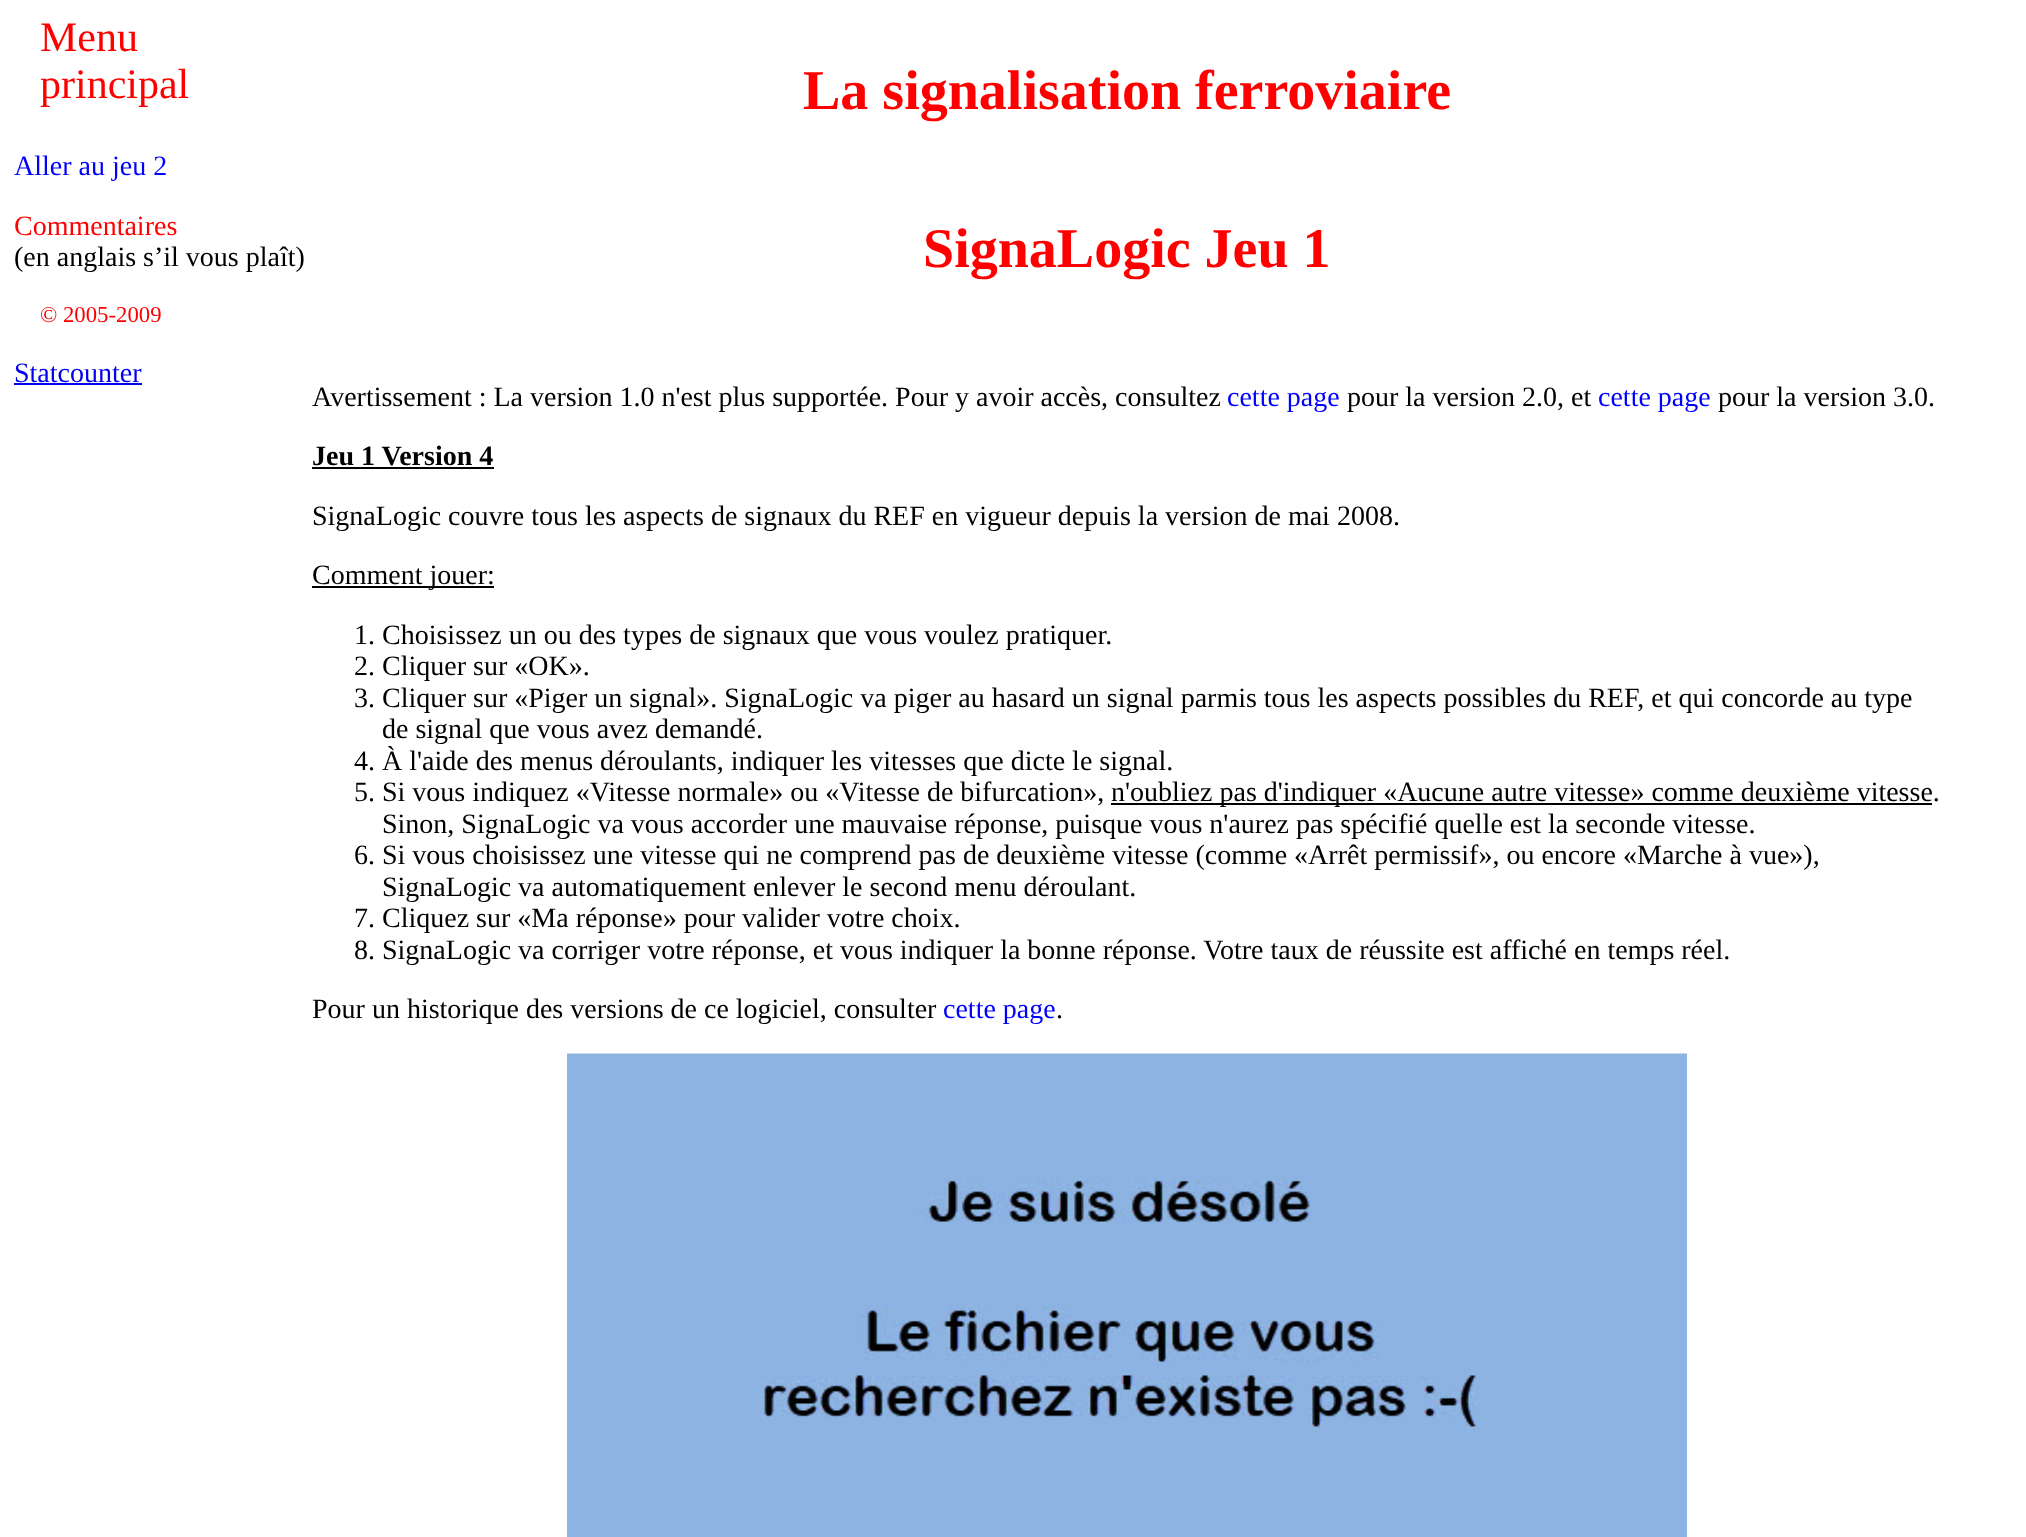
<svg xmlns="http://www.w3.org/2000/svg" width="2026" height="1537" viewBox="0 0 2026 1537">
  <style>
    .t1 { font: 42px Liberation Serif; fill: #f00; }
    .t2 { font: bold 56px Liberation Serif; fill: #f00; }
    .t3 { font: 28px Liberation Serif; fill: #000; }
    .t4 { font: 28px Liberation Serif; fill: #00f; }
    .t5 { font: bold 28px Liberation Serif; fill: #000; }
    .t6 { font: 28px Liberation Serif; fill: #f00; }
    .t7 { font: 22.75px Liberation Serif; fill: #f00; }
    .t8 { font: 28px Liberation Serif; fill: #00e; }
  </style>
  <rect width="100%" height="100%" fill="#fff"/>
  <text x="40" y="51" class="t1">Menu</text>
  <text x="40" y="98" class="t1">principal</text>
  <text x="803" y="109" class="t2">La signalisation ferroviaire</text>
  <text x="923" y="267" class="t2">SignaLogic Jeu 1</text>
  <text x="312" y="406" class="t3">Avertissement : La version 1.0 n'est plus supportée. Pour y avoir accès, consultez</text>
  <text x="1227" y="406" class="t4">cette page</text>
  <text x="1347" y="406" class="t3">pour la version 2.0, et</text>
  <text x="1598" y="406" class="t4">cette page</text>
  <text x="1718" y="406" class="t3">pour la version 3.0.</text>
  <text x="312" y="465" class="t5">Jeu 1 Version 4</text>
  <rect x="312" y="467" width="182" height="2" fill="#000"/>
  <text x="312" y="525" class="t3">SignaLogic couvre tous les aspects de signaux du REF en vigueur depuis la version de mai 2008.</text>
  <rect x="312" y="586" width="182" height="2" fill="#000"/>
  <text x="312" y="584" class="t3">Comment jouer:</text>
  <text x="354" y="644" class="t3">1. Choisissez un ou des types de signaux que vous voulez pratiquer.</text>
  <text x="354" y="675" class="t3">2. Cliquer sur «OK».</text>
  <text x="354" y="707" class="t3">3. Cliquer sur «Piger un signal». SignaLogic va piger au hasard un signal parmis tous les aspects possibles du REF, et qui concorde au type</text>
  <text x="382" y="738" class="t3">de signal que vous avez demandé.</text>
  <text x="354" y="770" class="t3">4. À l'aide des menus déroulants, indiquer les vitesses que dicte le signal.</text>
  <text x="354" y="801" class="t3">5. Si vous indiquez «Vitesse normale» ou «Vitesse de bifurcation»,</text>
  <rect x="1111" y="803" width="821" height="2" fill="#000"/>
  <text x="1111" y="801" class="t3">n'oubliez pas d'indiquer «Aucune autre vitesse» comme deuxième vitesse.</text>
  <text x="382" y="833" class="t3">Sinon, SignaLogic va vous accorder une mauvaise réponse, puisque vous n'aurez pas spécifié quelle est la seconde vitesse.</text>
  <text x="354" y="864" class="t3">6. Si vous choisissez une vitesse qui ne comprend pas de deuxième vitesse (comme «Arrêt permissif», ou encore «Marche à vue»),</text>
  <text x="382" y="896" class="t3">SignaLogic va automatiquement enlever le second menu déroulant.</text>
  <text x="354" y="927" class="t3">7. Cliquez sur «Ma réponse» pour valider votre choix.</text>
  <text x="354" y="959" class="t3">8. SignaLogic va corriger votre réponse, et vous indiquer la bonne réponse. Votre taux de réussite est affiché en temps réel.</text>
  <text x="312" y="1018" class="t3">Pour un historique des versions de ce logiciel, consulter</text>
  <text x="943" y="1018" class="t4">cette page</text>
  <text x="1056" y="1018" class="t3">.</text>
  <image x="567" y="1053" width="1120" height="484" href="images/1.png"/>
  <text x="14" y="175" class="t4">Aller au jeu 2</text>
  <text x="14" y="235" class="t6">Commentaires</text>
  <text x="14" y="266" class="t3">(en anglais s’il vous plaît)</text>
  <text x="40" y="322" class="t7">© 2005-2009</text>
  <text x="14" y="382" class="t8">Statcounter</text>
  <rect x="14" y="383" width="128" height="2" fill="#00e"/>
</svg>
